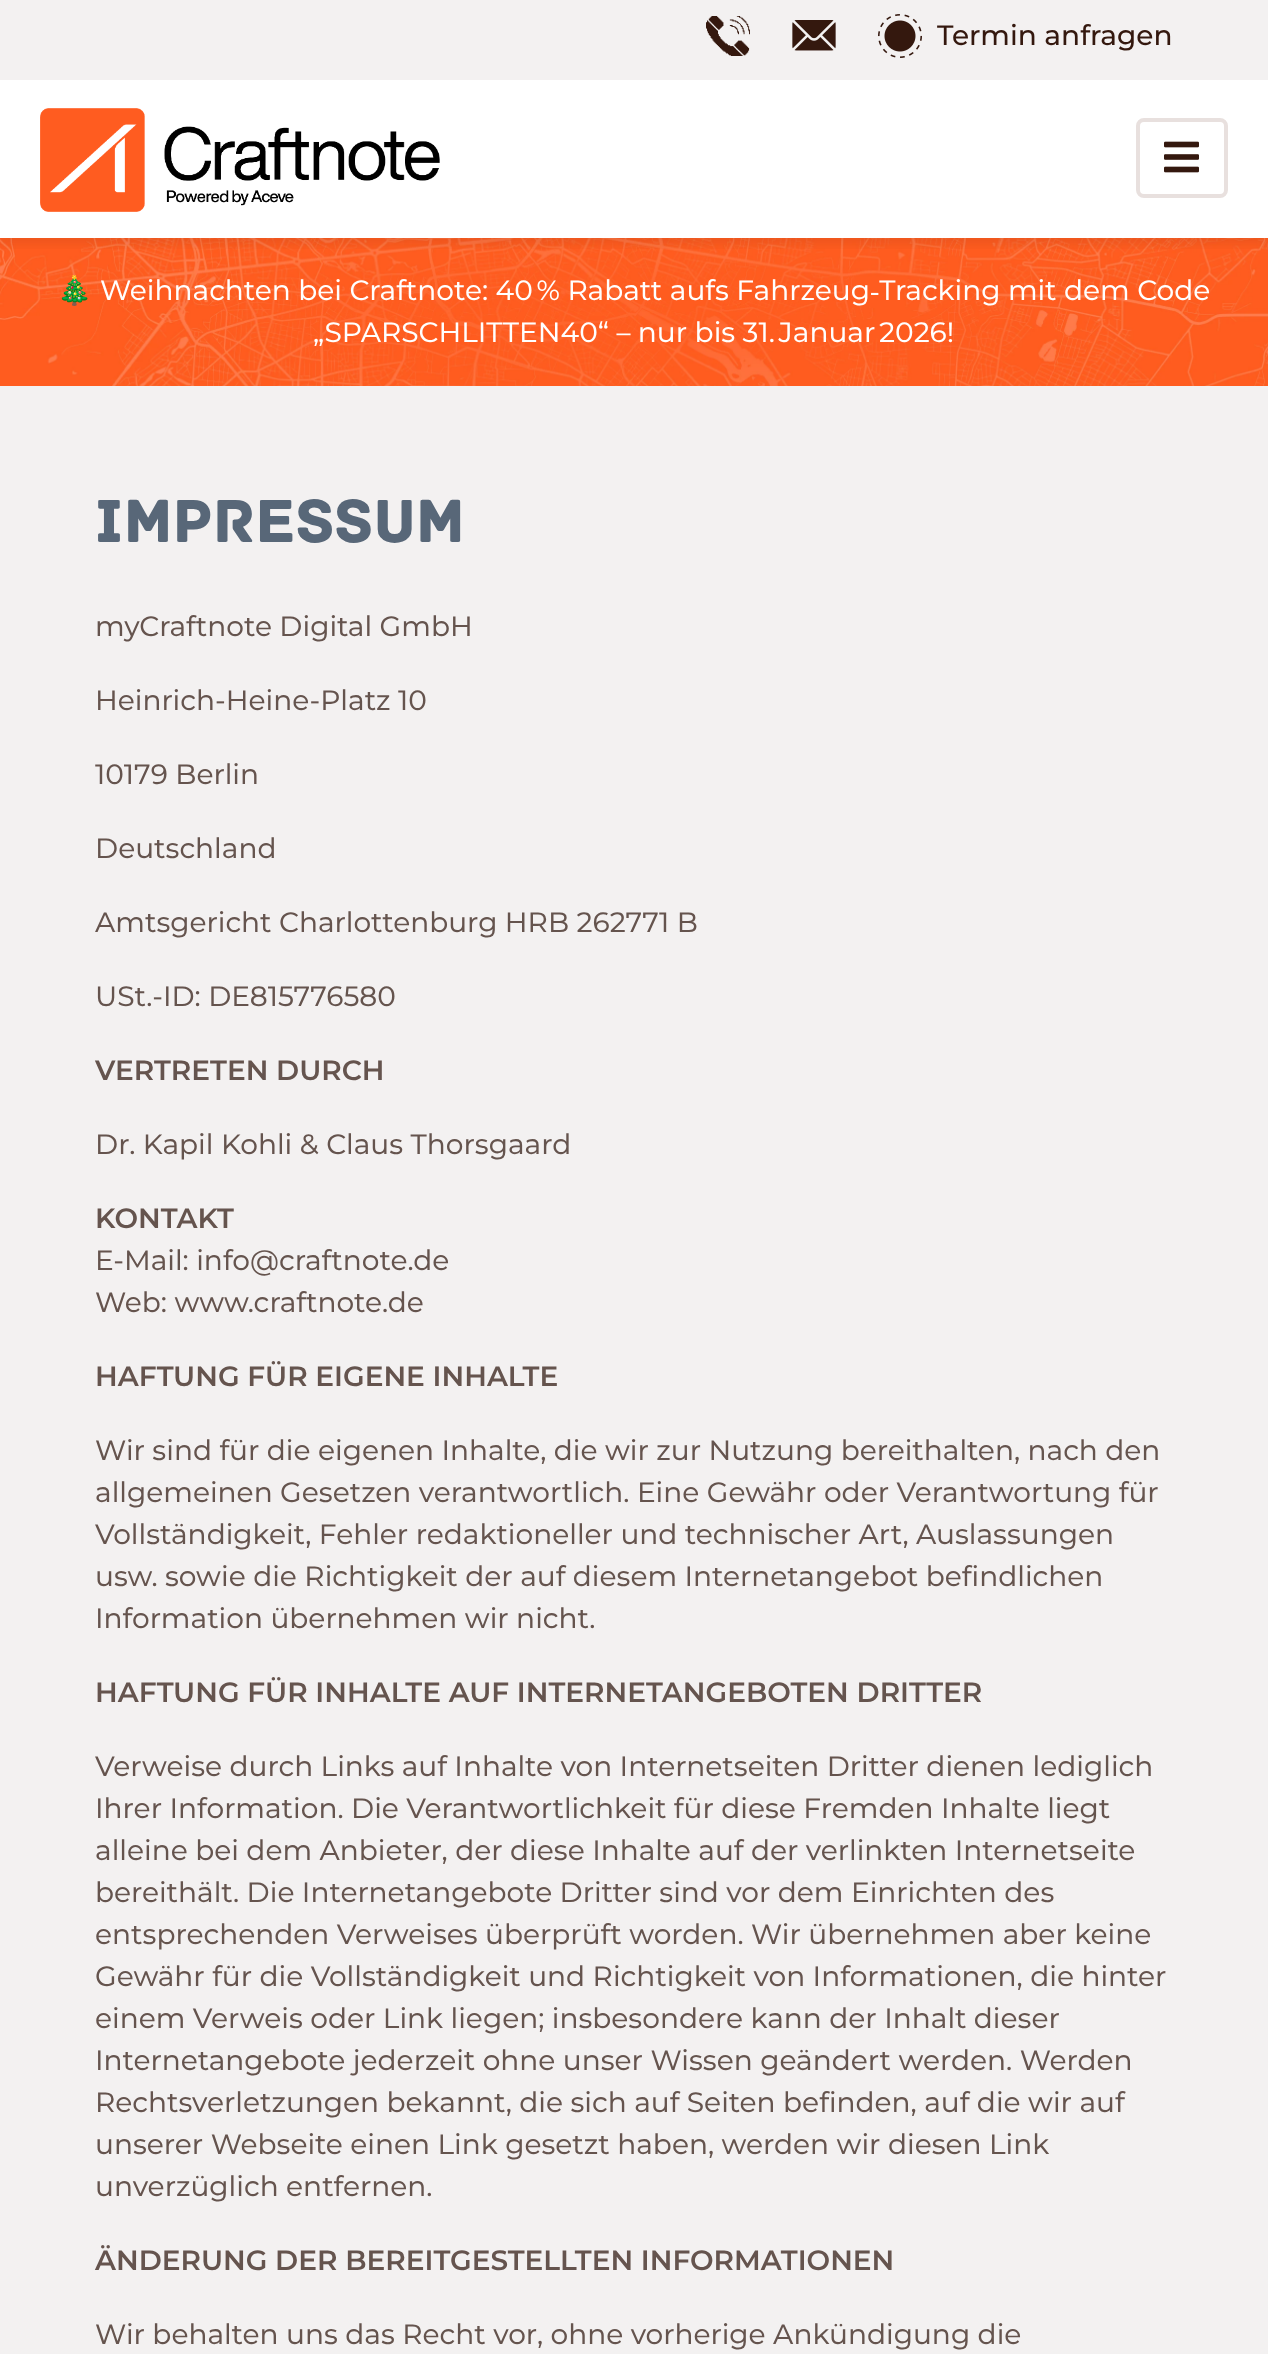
<svg xmlns="http://www.w3.org/2000/svg" width="1268" height="2354" viewBox="0 0 1268 2354">
  <style>
    .t1 { font: 500 28px Montserrat; fill: #34180e; }
    .t2 { font: 28px Noto Color Emoji; fill: #fff; }
    .t3 { font: 28px Montserrat; fill: #fff; }
    .t4 { font: 64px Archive; fill: #586778; }
    .t5 { font: 28px Montserrat; fill: #65544e; }
    .t6 { font: 600 28px Montserrat; fill: #65544e; }
  </style>
  <defs>
    <clipPath id="clip1"><rect x="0" y="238" width="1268" height="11"/></clipPath>
  </defs>
  <rect width="100%" height="100%" fill="#fff"/>
  <image x="0" y="238" width="1268" height="148" href="images/6.png"/>
  <g clip-path="url(#clip1)">
    <rect x="0" y="84" width="1268" height="160" fill="#34180e17" filter="blur(6px)"/>
  </g>
  <rect x="0" y="0" width="1268" height="80" fill="#f3f1f1"/>
  <image x="706" y="16" width="44" height="40" href="images/1.png"/>
  <image x="792" y="20" width="44" height="31" href="images/2.png"/>
  <image x="878" y="14" width="44" height="44" href="images/3.png"/>
  <text x="937" y="45" class="t1">Termin anfragen</text>
  <image x="40" y="108" width="400" height="104" href="images/4.png"/>
  <rect x="1138" y="120" width="88" height="76" rx="6" fill="none" stroke="#e8e0de" stroke-width="4"/>
  <image x="1164" y="141" width="35" height="32" href="images/5.png"/>
  <text x="57" y="300" class="t2">🎄</text>
  <text x="100" y="300" class="t3">Weihnachten bei Craftnote: 40 % Rabatt aufs Fahrzeug‑Tracking mit dem Code</text>
  <text x="313" y="342" class="t3">„SPARSCHLITTEN40“ – nur bis 31. Januar 2026!</text>
  <rect x="0" y="386" width="1268" height="1968" fill="#f3f1f1"/>
  <text x="95" y="542" class="t4">Impressum</text>
  <text x="95" y="636" class="t5">myCraftnote Digital GmbH</text>
  <text x="95" y="710" class="t5">Heinrich-Heine-Platz 10</text>
  <text x="95" y="784" class="t5">10179 Berlin</text>
  <text x="95" y="858" class="t5">Deutschland</text>
  <text x="95" y="932" class="t5">Amtsgericht Charlottenburg HRB 262771 B</text>
  <text x="95" y="1006" class="t5">USt.-ID: DE815776580</text>
  <text x="95" y="1080" class="t6">VERTRETEN DURCH</text>
  <text x="95" y="1154" class="t5">Dr. Kapil Kohli &amp; Claus Thorsgaard</text>
  <text x="95" y="1228" class="t6">KONTAKT</text>
  <text x="95" y="1270" class="t5">E-Mail: info@craftnote.de</text>
  <text x="95" y="1312" class="t5">Web: www.craftnote.de</text>
  <text x="95" y="1386" class="t6">HAFTUNG FÜR EIGENE INHALTE</text>
  <text x="95" y="1460" class="t5">Wir sind für die eigenen Inhalte, die wir zur Nutzung bereithalten, nach den</text>
  <text x="95" y="1502" class="t5">allgemeinen Gesetzen verantwortlich. Eine Gewähr oder Verantwortung für</text>
  <text x="95" y="1544" class="t5">Vollständigkeit, Fehler redaktioneller und technischer Art, Auslassungen</text>
  <text x="95" y="1586" class="t5">usw. sowie die Richtigkeit der auf diesem Internetangebot befindlichen</text>
  <text x="95" y="1628" class="t5">Information übernehmen wir nicht.</text>
  <text x="95" y="1702" class="t6">HAFTUNG FÜR INHALTE AUF INTERNETANGEBOTEN DRITTER</text>
  <text x="95" y="1776" class="t5">Verweise durch Links auf Inhalte von Internetseiten Dritter dienen lediglich</text>
  <text x="95" y="1818" class="t5">Ihrer Information. Die Verantwortlichkeit für diese Fremden Inhalte liegt</text>
  <text x="95" y="1860" class="t5">alleine bei dem Anbieter, der diese Inhalte auf der verlinkten Internetseite</text>
  <text x="95" y="1902" class="t5">bereithält. Die Internetangebote Dritter sind vor dem Einrichten des</text>
  <text x="95" y="1944" class="t5">entsprechenden Verweises überprüft worden. Wir übernehmen aber keine</text>
  <text x="95" y="1986" class="t5">Gewähr für die Vollständigkeit und Richtigkeit von Informationen, die hinter</text>
  <text x="95" y="2028" class="t5">einem Verweis oder Link liegen; insbesondere kann der Inhalt dieser</text>
  <text x="95" y="2070" class="t5">Internetangebote jederzeit ohne unser Wissen geändert werden. Werden</text>
  <text x="95" y="2112" class="t5">Rechtsverletzungen bekannt, die sich auf Seiten befinden, auf die wir auf</text>
  <text x="95" y="2154" class="t5">unserer Webseite einen Link gesetzt haben, werden wir diesen Link</text>
  <text x="95" y="2196" class="t5">unverzüglich entfernen.</text>
  <text x="95" y="2270" class="t6">ÄNDERUNG DER BEREITGESTELLTEN INFORMATIONEN</text>
  <text x="95" y="2344" class="t5">Wir behalten uns das Recht vor, ohne vorherige Ankündigung die</text>
</svg>
